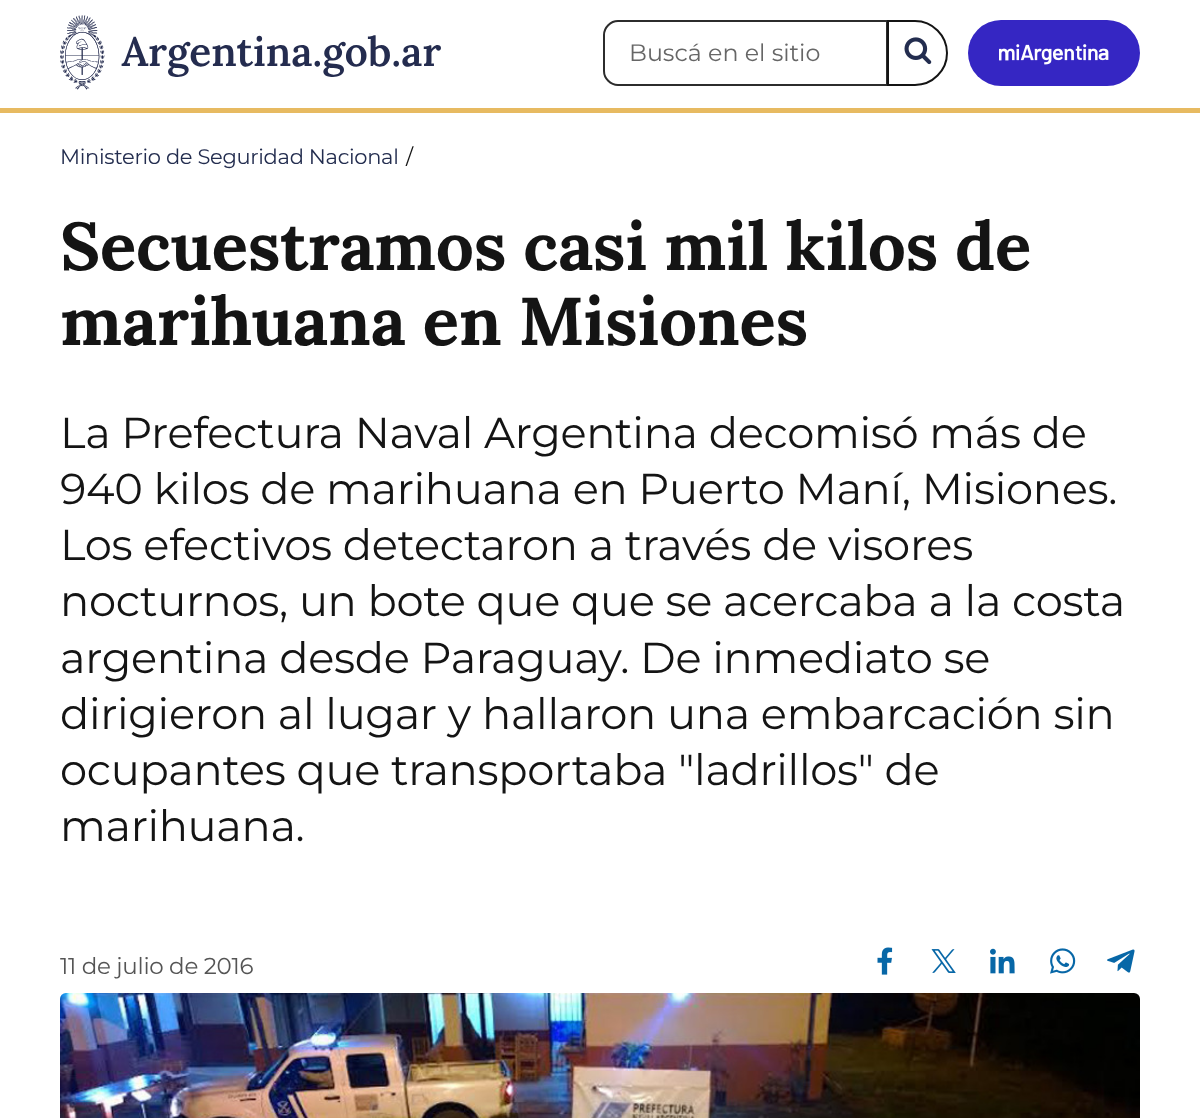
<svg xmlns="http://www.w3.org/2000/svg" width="1200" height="1118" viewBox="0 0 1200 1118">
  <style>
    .t1 { font: 23.75px Montserrat; fill: #666; }
    .t2 { font: 21px Montserrat; letter-spacing: -0.3px; fill: #232d4f; }
    .t3 { font: 21px Montserrat; letter-spacing: -0.3px; fill: #141414; }
    .t4 { font: bold 67.5px Lora; letter-spacing: -0.4px; fill: #141414; }
    .t5 { font: 43.2px Montserrat; letter-spacing: -0.3px; fill: #141414; }
    .t6 { font: 23px Montserrat; letter-spacing: -0.3px; fill: #555; }
  </style>
  <rect width="100%" height="100%" fill="#fff"/>
  <rect x="0" y="108" width="1200" height="5" fill="#e7ba61"/>
  <image x="60" y="15" width="381" height="75" href="images/1.png"/>
  <path d="M618 21H887V85H618C610.5 85 604 78.5 604 71V35C604 27.5 610.5 21 618 21Z" fill="none" stroke="#2c2c2c" stroke-width="2"/>
  <text x="629" y="61" class="t1">Buscá en el sitio</text>
  <path d="M888 21H915C932.5 21 947 35.5 947 53C947 70.5 932.5 85 915 85H888Z" fill="#fff" stroke="#141414" stroke-width="2"/>
  <image x="904" y="37" width="28" height="28" href="images/2.png"/>
  <rect x="968" y="20" width="172" height="66" rx="33" fill="#3526c3"/>
  <image x="999" y="44" width="110" height="21" href="images/3.png"/>
  <text x="60" y="164" class="t2">Ministerio de Seguridad Nacional</text>
  <text x="406" y="164" class="t3">/</text>
  <text x="60" y="270" class="t4">Secuestramos casi mil kilos de</text>
  <text x="60" y="345" class="t4">marihuana en Misiones</text>
  <text x="60" y="448" class="t5">La Prefectura Naval Argentina decomisó más de</text>
  <text x="60" y="504" class="t5">940 kilos de marihuana en Puerto Maní, Misiones.</text>
  <text x="60" y="560" class="t5">Los efectivos detectaron a través de visores</text>
  <text x="60" y="616" class="t5">nocturnos, un bote que que se acercaba a la costa</text>
  <text x="60" y="673" class="t5">argentina desde Paraguay. De inmediato se</text>
  <text x="60" y="729" class="t5">dirigieron al lugar y hallaron una embarcación sin</text>
  <text x="60" y="785" class="t5">ocupantes que transportaba "ladrillos" de</text>
  <text x="60" y="841" class="t5">marihuana.</text>
  <text x="60" y="974" class="t6">11 de julio de 2016</text>
  <image x="877" y="947" width="16" height="28" href="images/4.png"/>
  <image x="931" y="949" width="25" height="24" href="images/5.png"/>
  <image x="990" y="948" width="25" height="26" href="images/6.png"/>
  <image x="1050" y="948" width="26" height="26" href="images/7.png"/>
  <image x="1107" y="949" width="28" height="24" href="images/8.png"/>
  <image x="60" y="993" width="1080" height="125" href="images/9.png"/>
</svg>
